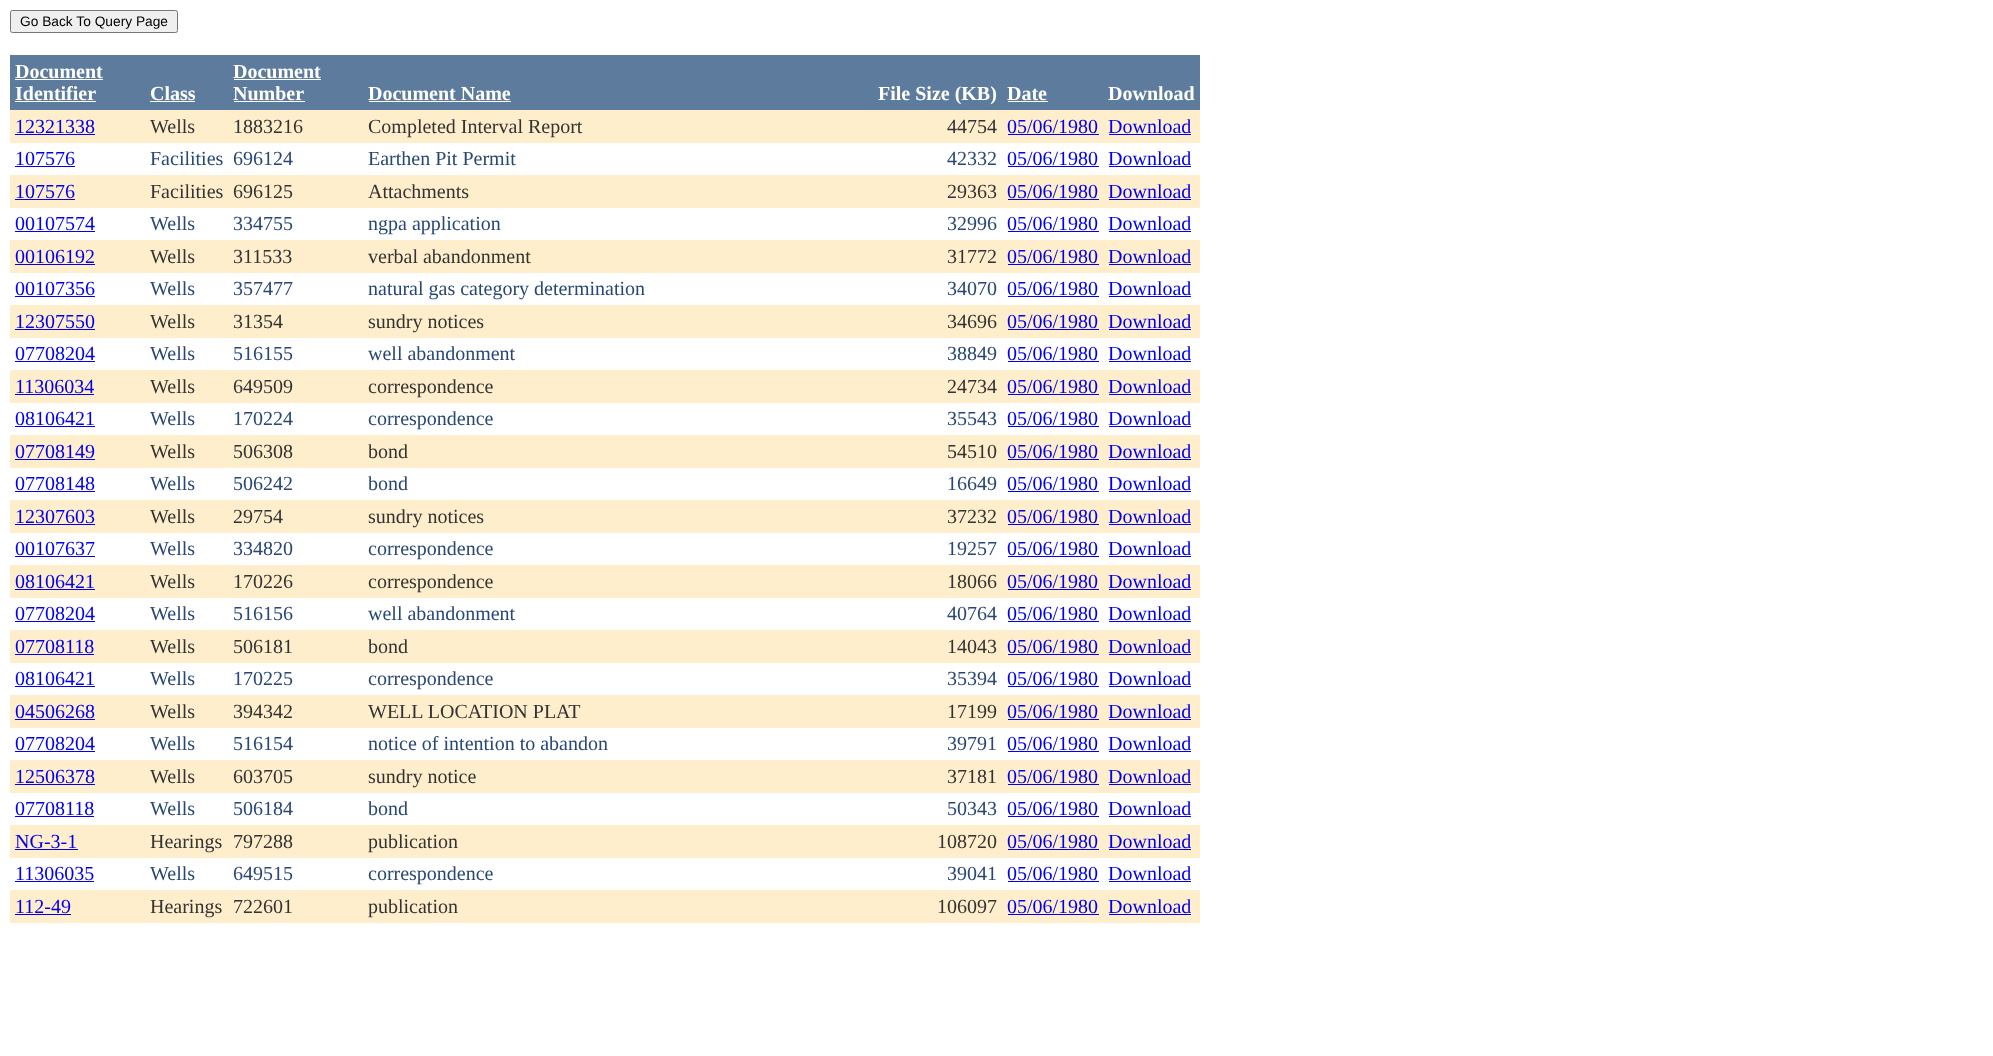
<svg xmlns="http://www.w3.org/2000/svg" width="1993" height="1056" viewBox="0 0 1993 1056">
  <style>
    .t1 { font: 13.75px Liberation Sans; fill: #000; }
    .t2 { font: bold 20px Liberation Serif; fill: #fff; }
    .t3 { font: 20px Liberation Serif; fill: #00e; }
    .t4 { font: 20px Liberation Serif; fill: #333; }
    .t5 { font: 20px Liberation Serif; fill: #284775; }
  </style>
  <rect width="100%" height="100%" fill="#fff"/>
  <rect x="10.5" y="10.5" width="167" height="22" rx="2" fill="#efefef" stroke="#767676"/>
  <text x="20" y="26" class="t1">Go Back To Query Page</text>
  <rect x="10" y="55" width="1190" height="55" fill="#5d7b9d"/>
  <text x="15" y="78" class="t2">Document</text>
  <rect x="15" y="79" width="88" height="1" fill="#fff"/>
  <text x="15" y="100" class="t2">Identifier</text>
  <rect x="15" y="101" width="81" height="1" fill="#fff"/>
  <text x="150" y="100" class="t2">Class</text>
  <rect x="150" y="101" width="45" height="1" fill="#fff"/>
  <text x="233" y="78" class="t2">Document</text>
  <rect x="234" y="79" width="87" height="1" fill="#fff"/>
  <text x="233" y="100" class="t2">Number</text>
  <rect x="234" y="101" width="71" height="1" fill="#fff"/>
  <text x="368" y="100" class="t2">Document Name</text>
  <rect x="369" y="101" width="142" height="1" fill="#fff"/>
  <text x="878" y="100" class="t2">File Size (KB)</text>
  <text x="1007" y="100" class="t2">Date</text>
  <rect x="1008" y="101" width="40" height="1" fill="#fff"/>
  <text x="1108" y="100" class="t2">Download</text>
  <rect x="10" y="110" width="1190" height="33" fill="#fec"/>
  <text x="15" y="133" class="t3">12321338</text>
  <rect x="15" y="134" width="80" height="1" fill="#00e"/>
  <text x="150" y="133" class="t4">Wells</text>
  <text x="233" y="133" class="t4">1883216</text>
  <text x="368" y="133" class="t4">Completed Interval Report</text>
  <text x="947" y="133" class="t4">44754</text>
  <text x="1007" y="133" class="t3">05/06/1980</text>
  <rect x="1008" y="134" width="91" height="1" fill="#00e"/>
  <text x="1108" y="133" class="t3">Download</text>
  <rect x="1109" y="134" width="82" height="1" fill="#00e"/>
  <text x="15" y="165" class="t3">107576</text>
  <rect x="15" y="166" width="60" height="1" fill="#00e"/>
  <text x="150" y="165" class="t5">Facilities</text>
  <text x="233" y="165" class="t5">696124</text>
  <text x="368" y="165" class="t5">Earthen Pit Permit</text>
  <text x="947" y="165" class="t5">42332</text>
  <text x="1007" y="165" class="t3">05/06/1980</text>
  <rect x="1008" y="166" width="91" height="1" fill="#00e"/>
  <text x="1108" y="165" class="t3">Download</text>
  <rect x="1109" y="166" width="82" height="1" fill="#00e"/>
  <rect x="10" y="175" width="1190" height="33" fill="#fec"/>
  <text x="15" y="198" class="t3">107576</text>
  <rect x="15" y="199" width="60" height="1" fill="#00e"/>
  <text x="150" y="198" class="t4">Facilities</text>
  <text x="233" y="198" class="t4">696125</text>
  <text x="368" y="198" class="t4">Attachments</text>
  <text x="947" y="198" class="t4">29363</text>
  <text x="1007" y="198" class="t3">05/06/1980</text>
  <rect x="1008" y="199" width="91" height="1" fill="#00e"/>
  <text x="1108" y="198" class="t3">Download</text>
  <rect x="1109" y="199" width="82" height="1" fill="#00e"/>
  <text x="15" y="230" class="t3">00107574</text>
  <rect x="15" y="231" width="80" height="1" fill="#00e"/>
  <text x="150" y="230" class="t5">Wells</text>
  <text x="233" y="230" class="t5">334755</text>
  <text x="368" y="230" class="t5">ngpa application</text>
  <text x="947" y="230" class="t5">32996</text>
  <text x="1007" y="230" class="t3">05/06/1980</text>
  <rect x="1008" y="231" width="91" height="1" fill="#00e"/>
  <text x="1108" y="230" class="t3">Download</text>
  <rect x="1109" y="231" width="82" height="1" fill="#00e"/>
  <rect x="10" y="240" width="1190" height="33" fill="#fec"/>
  <text x="15" y="263" class="t3">00106192</text>
  <rect x="15" y="264" width="80" height="1" fill="#00e"/>
  <text x="150" y="263" class="t4">Wells</text>
  <text x="233" y="263" class="t4">311533</text>
  <text x="368" y="263" class="t4">verbal abandonment</text>
  <text x="947" y="263" class="t4">31772</text>
  <text x="1007" y="263" class="t3">05/06/1980</text>
  <rect x="1008" y="264" width="91" height="1" fill="#00e"/>
  <text x="1108" y="263" class="t3">Download</text>
  <rect x="1109" y="264" width="82" height="1" fill="#00e"/>
  <text x="15" y="295" class="t3">00107356</text>
  <rect x="15" y="296" width="80" height="1" fill="#00e"/>
  <text x="150" y="295" class="t5">Wells</text>
  <text x="233" y="295" class="t5">357477</text>
  <text x="368" y="295" class="t5">natural gas category determination</text>
  <text x="947" y="295" class="t5">34070</text>
  <text x="1007" y="295" class="t3">05/06/1980</text>
  <rect x="1008" y="296" width="91" height="1" fill="#00e"/>
  <text x="1108" y="295" class="t3">Download</text>
  <rect x="1109" y="296" width="82" height="1" fill="#00e"/>
  <rect x="10" y="305" width="1190" height="33" fill="#fec"/>
  <text x="15" y="328" class="t3">12307550</text>
  <rect x="15" y="329" width="80" height="1" fill="#00e"/>
  <text x="150" y="328" class="t4">Wells</text>
  <text x="233" y="328" class="t4">31354</text>
  <text x="368" y="328" class="t4">sundry notices</text>
  <text x="947" y="328" class="t4">34696</text>
  <text x="1007" y="328" class="t3">05/06/1980</text>
  <rect x="1008" y="329" width="91" height="1" fill="#00e"/>
  <text x="1108" y="328" class="t3">Download</text>
  <rect x="1109" y="329" width="82" height="1" fill="#00e"/>
  <text x="15" y="360" class="t3">07708204</text>
  <rect x="15" y="361" width="80" height="1" fill="#00e"/>
  <text x="150" y="360" class="t5">Wells</text>
  <text x="233" y="360" class="t5">516155</text>
  <text x="368" y="360" class="t5">well abandonment</text>
  <text x="947" y="360" class="t5">38849</text>
  <text x="1007" y="360" class="t3">05/06/1980</text>
  <rect x="1008" y="361" width="91" height="1" fill="#00e"/>
  <text x="1108" y="360" class="t3">Download</text>
  <rect x="1109" y="361" width="82" height="1" fill="#00e"/>
  <rect x="10" y="370" width="1190" height="33" fill="#fec"/>
  <text x="15" y="393" class="t3">11306034</text>
  <rect x="15" y="394" width="79" height="1" fill="#00e"/>
  <text x="150" y="393" class="t4">Wells</text>
  <text x="233" y="393" class="t4">649509</text>
  <text x="368" y="393" class="t4">correspondence</text>
  <text x="947" y="393" class="t4">24734</text>
  <text x="1007" y="393" class="t3">05/06/1980</text>
  <rect x="1008" y="394" width="91" height="1" fill="#00e"/>
  <text x="1108" y="393" class="t3">Download</text>
  <rect x="1109" y="394" width="82" height="1" fill="#00e"/>
  <text x="15" y="425" class="t3">08106421</text>
  <rect x="15" y="426" width="80" height="1" fill="#00e"/>
  <text x="150" y="425" class="t5">Wells</text>
  <text x="233" y="425" class="t5">170224</text>
  <text x="368" y="425" class="t5">correspondence</text>
  <text x="947" y="425" class="t5">35543</text>
  <text x="1007" y="425" class="t3">05/06/1980</text>
  <rect x="1008" y="426" width="91" height="1" fill="#00e"/>
  <text x="1108" y="425" class="t3">Download</text>
  <rect x="1109" y="426" width="82" height="1" fill="#00e"/>
  <rect x="10" y="435" width="1190" height="33" fill="#fec"/>
  <text x="15" y="458" class="t3">07708149</text>
  <rect x="15" y="459" width="80" height="1" fill="#00e"/>
  <text x="150" y="458" class="t4">Wells</text>
  <text x="233" y="458" class="t4">506308</text>
  <text x="368" y="458" class="t4">bond</text>
  <text x="947" y="458" class="t4">54510</text>
  <text x="1007" y="458" class="t3">05/06/1980</text>
  <rect x="1008" y="459" width="91" height="1" fill="#00e"/>
  <text x="1108" y="458" class="t3">Download</text>
  <rect x="1109" y="459" width="82" height="1" fill="#00e"/>
  <text x="15" y="490" class="t3">07708148</text>
  <rect x="15" y="491" width="80" height="1" fill="#00e"/>
  <text x="150" y="490" class="t5">Wells</text>
  <text x="233" y="490" class="t5">506242</text>
  <text x="368" y="490" class="t5">bond</text>
  <text x="947" y="490" class="t5">16649</text>
  <text x="1007" y="490" class="t3">05/06/1980</text>
  <rect x="1008" y="491" width="91" height="1" fill="#00e"/>
  <text x="1108" y="490" class="t3">Download</text>
  <rect x="1109" y="491" width="82" height="1" fill="#00e"/>
  <rect x="10" y="500" width="1190" height="33" fill="#fec"/>
  <text x="15" y="523" class="t3">12307603</text>
  <rect x="15" y="524" width="80" height="1" fill="#00e"/>
  <text x="150" y="523" class="t4">Wells</text>
  <text x="233" y="523" class="t4">29754</text>
  <text x="368" y="523" class="t4">sundry notices</text>
  <text x="947" y="523" class="t4">37232</text>
  <text x="1007" y="523" class="t3">05/06/1980</text>
  <rect x="1008" y="524" width="91" height="1" fill="#00e"/>
  <text x="1108" y="523" class="t3">Download</text>
  <rect x="1109" y="524" width="82" height="1" fill="#00e"/>
  <text x="15" y="555" class="t3">00107637</text>
  <rect x="15" y="556" width="80" height="1" fill="#00e"/>
  <text x="150" y="555" class="t5">Wells</text>
  <text x="233" y="555" class="t5">334820</text>
  <text x="368" y="555" class="t5">correspondence</text>
  <text x="947" y="555" class="t5">19257</text>
  <text x="1007" y="555" class="t3">05/06/1980</text>
  <rect x="1008" y="556" width="91" height="1" fill="#00e"/>
  <text x="1108" y="555" class="t3">Download</text>
  <rect x="1109" y="556" width="82" height="1" fill="#00e"/>
  <rect x="10" y="565" width="1190" height="33" fill="#fec"/>
  <text x="15" y="588" class="t3">08106421</text>
  <rect x="15" y="589" width="80" height="1" fill="#00e"/>
  <text x="150" y="588" class="t4">Wells</text>
  <text x="233" y="588" class="t4">170226</text>
  <text x="368" y="588" class="t4">correspondence</text>
  <text x="947" y="588" class="t4">18066</text>
  <text x="1007" y="588" class="t3">05/06/1980</text>
  <rect x="1008" y="589" width="91" height="1" fill="#00e"/>
  <text x="1108" y="588" class="t3">Download</text>
  <rect x="1109" y="589" width="82" height="1" fill="#00e"/>
  <text x="15" y="620" class="t3">07708204</text>
  <rect x="15" y="621" width="80" height="1" fill="#00e"/>
  <text x="150" y="620" class="t5">Wells</text>
  <text x="233" y="620" class="t5">516156</text>
  <text x="368" y="620" class="t5">well abandonment</text>
  <text x="947" y="620" class="t5">40764</text>
  <text x="1007" y="620" class="t3">05/06/1980</text>
  <rect x="1008" y="621" width="91" height="1" fill="#00e"/>
  <text x="1108" y="620" class="t3">Download</text>
  <rect x="1109" y="621" width="82" height="1" fill="#00e"/>
  <rect x="10" y="630" width="1190" height="33" fill="#fec"/>
  <text x="15" y="653" class="t3">07708118</text>
  <rect x="15" y="654" width="79" height="1" fill="#00e"/>
  <text x="150" y="653" class="t4">Wells</text>
  <text x="233" y="653" class="t4">506181</text>
  <text x="368" y="653" class="t4">bond</text>
  <text x="947" y="653" class="t4">14043</text>
  <text x="1007" y="653" class="t3">05/06/1980</text>
  <rect x="1008" y="654" width="91" height="1" fill="#00e"/>
  <text x="1108" y="653" class="t3">Download</text>
  <rect x="1109" y="654" width="82" height="1" fill="#00e"/>
  <text x="15" y="685" class="t3">08106421</text>
  <rect x="15" y="686" width="80" height="1" fill="#00e"/>
  <text x="150" y="685" class="t5">Wells</text>
  <text x="233" y="685" class="t5">170225</text>
  <text x="368" y="685" class="t5">correspondence</text>
  <text x="947" y="685" class="t5">35394</text>
  <text x="1007" y="685" class="t3">05/06/1980</text>
  <rect x="1008" y="686" width="91" height="1" fill="#00e"/>
  <text x="1108" y="685" class="t3">Download</text>
  <rect x="1109" y="686" width="82" height="1" fill="#00e"/>
  <rect x="10" y="695" width="1190" height="33" fill="#fec"/>
  <text x="15" y="718" class="t3">04506268</text>
  <rect x="15" y="719" width="80" height="1" fill="#00e"/>
  <text x="150" y="718" class="t4">Wells</text>
  <text x="233" y="718" class="t4">394342</text>
  <text x="368" y="718" class="t4">WELL LOCATION PLAT</text>
  <text x="947" y="718" class="t4">17199</text>
  <text x="1007" y="718" class="t3">05/06/1980</text>
  <rect x="1008" y="719" width="91" height="1" fill="#00e"/>
  <text x="1108" y="718" class="t3">Download</text>
  <rect x="1109" y="719" width="82" height="1" fill="#00e"/>
  <text x="15" y="750" class="t3">07708204</text>
  <rect x="15" y="751" width="80" height="1" fill="#00e"/>
  <text x="150" y="750" class="t5">Wells</text>
  <text x="233" y="750" class="t5">516154</text>
  <text x="368" y="750" class="t5">notice of intention to abandon</text>
  <text x="947" y="750" class="t5">39791</text>
  <text x="1007" y="750" class="t3">05/06/1980</text>
  <rect x="1008" y="751" width="91" height="1" fill="#00e"/>
  <text x="1108" y="750" class="t3">Download</text>
  <rect x="1109" y="751" width="82" height="1" fill="#00e"/>
  <rect x="10" y="760" width="1190" height="33" fill="#fec"/>
  <text x="15" y="783" class="t3">12506378</text>
  <rect x="15" y="784" width="80" height="1" fill="#00e"/>
  <text x="150" y="783" class="t4">Wells</text>
  <text x="233" y="783" class="t4">603705</text>
  <text x="368" y="783" class="t4">sundry notice</text>
  <text x="947" y="783" class="t4">37181</text>
  <text x="1007" y="783" class="t3">05/06/1980</text>
  <rect x="1008" y="784" width="91" height="1" fill="#00e"/>
  <text x="1108" y="783" class="t3">Download</text>
  <rect x="1109" y="784" width="82" height="1" fill="#00e"/>
  <text x="15" y="815" class="t3">07708118</text>
  <rect x="15" y="816" width="79" height="1" fill="#00e"/>
  <text x="150" y="815" class="t5">Wells</text>
  <text x="233" y="815" class="t5">506184</text>
  <text x="368" y="815" class="t5">bond</text>
  <text x="947" y="815" class="t5">50343</text>
  <text x="1007" y="815" class="t3">05/06/1980</text>
  <rect x="1008" y="816" width="91" height="1" fill="#00e"/>
  <text x="1108" y="815" class="t3">Download</text>
  <rect x="1109" y="816" width="82" height="1" fill="#00e"/>
  <rect x="10" y="825" width="1190" height="33" fill="#fec"/>
  <text x="15" y="848" class="t3">NG-3-1</text>
  <rect x="15" y="849" width="63" height="1" fill="#00e"/>
  <text x="150" y="848" class="t4">Hearings</text>
  <text x="233" y="848" class="t4">797288</text>
  <text x="368" y="848" class="t4">publication</text>
  <text x="937" y="848" class="t4">108720</text>
  <text x="1007" y="848" class="t3">05/06/1980</text>
  <rect x="1008" y="849" width="91" height="1" fill="#00e"/>
  <text x="1108" y="848" class="t3">Download</text>
  <rect x="1109" y="849" width="82" height="1" fill="#00e"/>
  <text x="15" y="880" class="t3">11306035</text>
  <rect x="15" y="881" width="79" height="1" fill="#00e"/>
  <text x="150" y="880" class="t5">Wells</text>
  <text x="233" y="880" class="t5">649515</text>
  <text x="368" y="880" class="t5">correspondence</text>
  <text x="947" y="880" class="t5">39041</text>
  <text x="1007" y="880" class="t3">05/06/1980</text>
  <rect x="1008" y="881" width="91" height="1" fill="#00e"/>
  <text x="1108" y="880" class="t3">Download</text>
  <rect x="1109" y="881" width="82" height="1" fill="#00e"/>
  <rect x="10" y="890" width="1190" height="33" fill="#fec"/>
  <text x="15" y="913" class="t3">112-49</text>
  <rect x="15" y="914" width="56" height="1" fill="#00e"/>
  <text x="150" y="913" class="t4">Hearings</text>
  <text x="233" y="913" class="t4">722601</text>
  <text x="368" y="913" class="t4">publication</text>
  <text x="937" y="913" class="t4">106097</text>
  <text x="1007" y="913" class="t3">05/06/1980</text>
  <rect x="1008" y="914" width="91" height="1" fill="#00e"/>
  <text x="1108" y="913" class="t3">Download</text>
  <rect x="1109" y="914" width="82" height="1" fill="#00e"/>
</svg>
